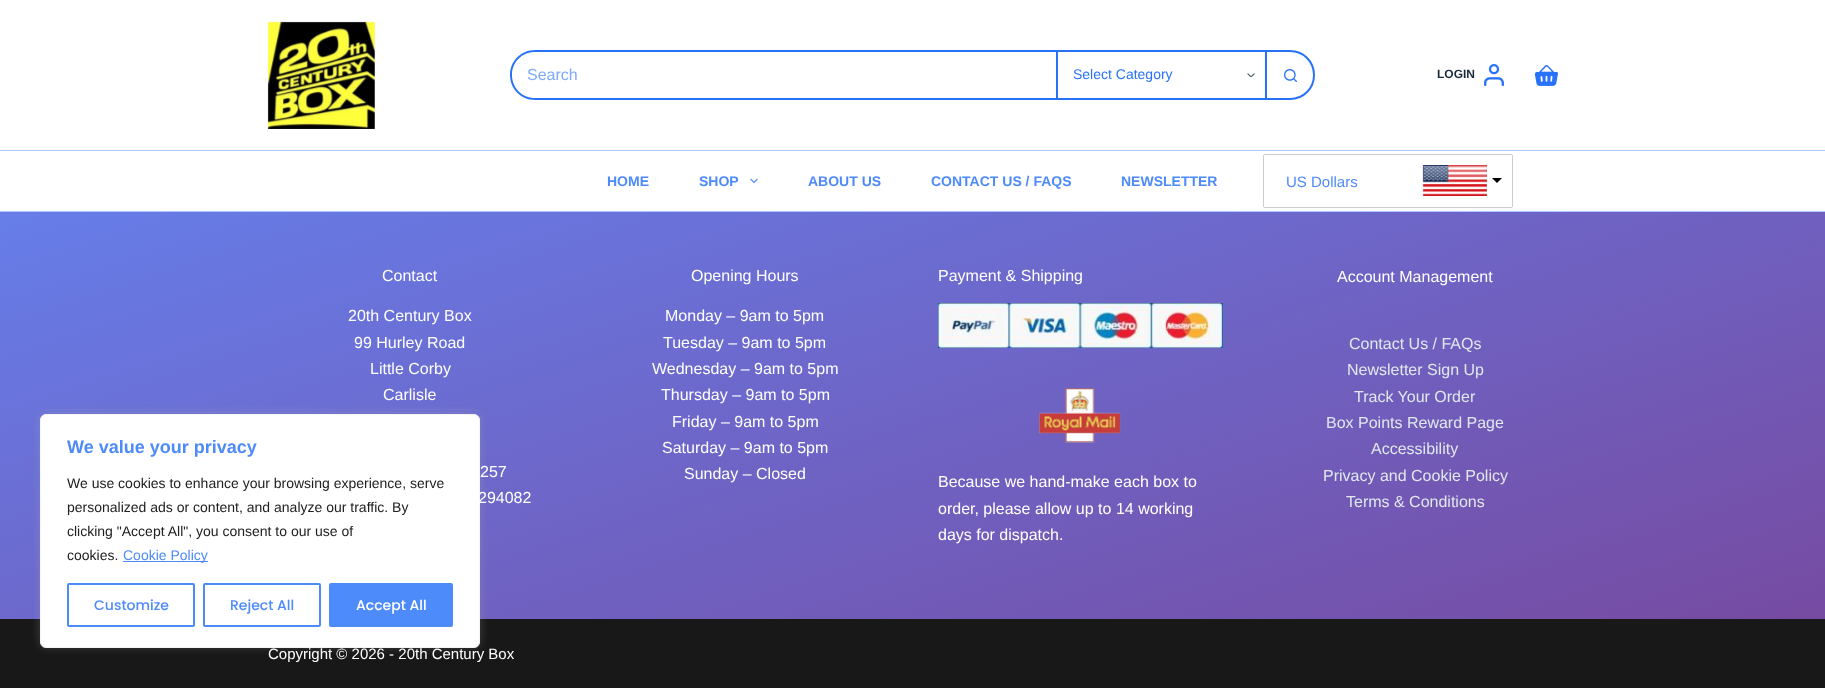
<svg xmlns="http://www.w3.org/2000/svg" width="1825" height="688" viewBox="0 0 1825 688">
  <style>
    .t1 { font: bold 18px Liberation Sans; fill: #4d8afa; }
    .t2 { font: 14px Liberation Sans; fill: #212121; }
    .t3 { font: 14px Liberation Sans; fill: #4d8afa; }
    .t4 { font: 500 14px Poppins; fill: #4d8afa; }
    .t5 { font: 500 14px Poppins; fill: #fff; }
    .t6 { font: 16px Liberation Sans; fill: #7eaafc; }
    .t7 { font: 14px Liberation Sans; fill: #2872fa; }
    .t8 { font: bold 12px Liberation Sans; fill: #192a3d; }
    .t9 { font: bold 14px Liberation Sans; fill: #4d8afa; }
    .t10 { font: 15px Liberation Sans; fill: #4d8afa; }
    .t11 { font: 16px Liberation Sans; fill: #fff; }
    .t12 { font: 16px Liberation Sans; fill: #e1e8ed; }
    .t13 { font: 15px Liberation Sans; fill: #fff; }
  </style>
  <defs>
    <linearGradient id="g1" gradientUnits="userSpaceOnUse" x1="763" y1="-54" x2="1062" y2="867"><stop offset="0" stop-color="#667eea"/><stop offset="1" stop-color="#764ba2"/></linearGradient>
  </defs>
  <rect width="100%" height="100%" fill="#fff"/>
  <rect x="0" y="212" width="1825" height="407" fill="url(#g1)"/>
  <rect x="0" y="619" width="1825" height="69" fill="#181818"/>
  <rect x="40" y="413" width="440" height="234" rx="6" fill="#acabab4d" filter="blur(5px)"/>
  <rect x="40.5" y="414.5" width="439" height="233" rx="5.5" fill="#fff" stroke="#f4f4f4"/>
  <text x="67" y="453" class="t1">We value your privacy</text>
  <text x="67" y="488" class="t2">We use cookies to enhance your browsing experience, serve</text>
  <text x="67" y="512" class="t2">personalized ads or content, and analyze our traffic. By</text>
  <text x="67" y="536" class="t2">clicking "Accept All", you consent to our use of</text>
  <text x="67" y="560" class="t2">cookies.</text>
  <rect x="123" y="561" width="85" height="1" fill="#4d8afa"/>
  <text x="123" y="560" class="t3">Cookie Policy</text>
  <rect x="68" y="584" width="126" height="42" rx="1" fill="none" stroke="#4d8afa" stroke-width="2"/>
  <text x="94" y="610" class="t4">Customize</text>
  <rect x="204" y="584" width="116" height="42" rx="1" fill="none" stroke="#4d8afa" stroke-width="2"/>
  <text x="230" y="610" class="t4">Reject All</text>
  <rect x="330" y="584" width="122" height="42" rx="1" fill="#4d8afa" stroke="#4d8afa" stroke-width="2"/>
  <text x="356" y="610" class="t5">Accept All</text>
  <image x="267" y="21" width="108" height="108" href="images/1.png"/>
  <path d="M535 50H1056V100H535C521 100 510 89 510 75C510 61 521 50 535 50ZM535 52H1056V98H535C522 98 512 88 512 75C512 62 522 52 535 52Z" fill="#2872fa" fill-rule="evenodd"/>
  <text x="527" y="80" class="t6">Search</text>
  <image x="1247" y="73" width="8" height="4" href="images/2.png"/>
  <rect x="1056" y="50" width="209" height="2" fill="#2872fa"/>
  <rect x="1056" y="98" width="209" height="2" fill="#2872fa"/>
  <rect x="1056" y="50" width="2" height="50" fill="#2872fa"/>
  <text x="1073" y="79" class="t7">Select Category</text>
  <path d="M1266 51H1290C1303.5 51 1314 61.5 1314 75C1314 88.5 1303.5 99 1290 99H1266Z" fill="none" stroke="#2872fa" stroke-width="2"/>
  <image x="1284" y="69" width="13" height="13" href="images/3.png"/>
  <text x="1437" y="78" class="t8">LOGIN</text>
  <image x="1484" y="64" width="20" height="22" href="images/4.png"/>
  <image x="1535" y="65" width="23" height="21" href="images/5.png"/>
  <rect x="0" y="150" width="1825" height="1" fill="#a9c6fd"/>
  <rect x="0" y="211" width="1825" height="1" fill="#a9c6fd"/>
  <text x="607" y="186" class="t9">HOME</text>
  <text x="699" y="186" class="t9">SHOP</text>
  <image x="750" y="178" width="8" height="6" href="images/6.png"/>
  <text x="808" y="186" class="t9">ABOUT US</text>
  <text x="931" y="186" class="t9">CONTACT US / FAQS</text>
  <text x="1121" y="186" class="t9">NEWSLETTER</text>
  <rect x="1263.5" y="154.5" width="249" height="53" rx="1.5" fill="none" stroke="#ccc"/>
  <rect x="1264" y="155" width="248" height="52" fill="#fff"/>
  <text x="1286" y="187" class="t10">US Dollars</text>
  <image x="1422" y="165" width="65" height="31" href="images/7.png"/>
  <path d="M1492 178H1502L1497 183Z" fill="#000"/>
  <text x="382" y="281" class="t11">Contact</text>
  <text x="348" y="321" class="t11">20th Century Box</text>
  <text x="354" y="348" class="t11">99 Hurley Road</text>
  <text x="370" y="374" class="t11">Little Corby</text>
  <text x="383" y="400" class="t11">Carlisle</text>
  <text x="480" y="477" class="t11">257</text>
  <text x="478" y="503" class="t11">294082</text>
  <text x="691" y="281" class="t11">Opening Hours</text>
  <text x="665" y="321" class="t11">Monday – 9am to 5pm</text>
  <text x="663" y="348" class="t11">Tuesday – 9am to 5pm</text>
  <text x="652" y="374" class="t11">Wednesday – 9am to 5pm</text>
  <text x="661" y="400" class="t11">Thursday – 9am to 5pm</text>
  <text x="672" y="427" class="t11">Friday – 9am to 5pm</text>
  <text x="662" y="453" class="t11">Saturday – 9am to 5pm</text>
  <text x="684" y="479" class="t11">Sunday – Closed</text>
  <text x="938" y="281" class="t11">Payment &amp; Shipping</text>
  <image x="938" y="303" width="285" height="45" href="images/8.png"/>
  <image x="1039" y="388" width="82" height="55" href="images/9.png"/>
  <text x="938" y="487" class="t11">Because we hand-make each box to</text>
  <text x="938" y="514" class="t11">order, please allow up to 14 working</text>
  <text x="938" y="540" class="t11">days for dispatch.</text>
  <text x="1337" y="282" class="t11">Account Management</text>
  <text x="1349" y="349" class="t12">Contact Us / FAQs</text>
  <text x="1347" y="375" class="t12">Newsletter Sign Up</text>
  <text x="1354" y="402" class="t12">Track Your Order</text>
  <text x="1326" y="428" class="t12">Box Points Reward Page</text>
  <text x="1371" y="454" class="t12">Accessibility</text>
  <text x="1323" y="481" class="t12">Privacy and Cookie Policy</text>
  <text x="1346" y="507" class="t12">Terms &amp; Conditions</text>
  <text x="268" y="659" class="t13">Copyright © 2026 - 20th Century Box</text>
</svg>
